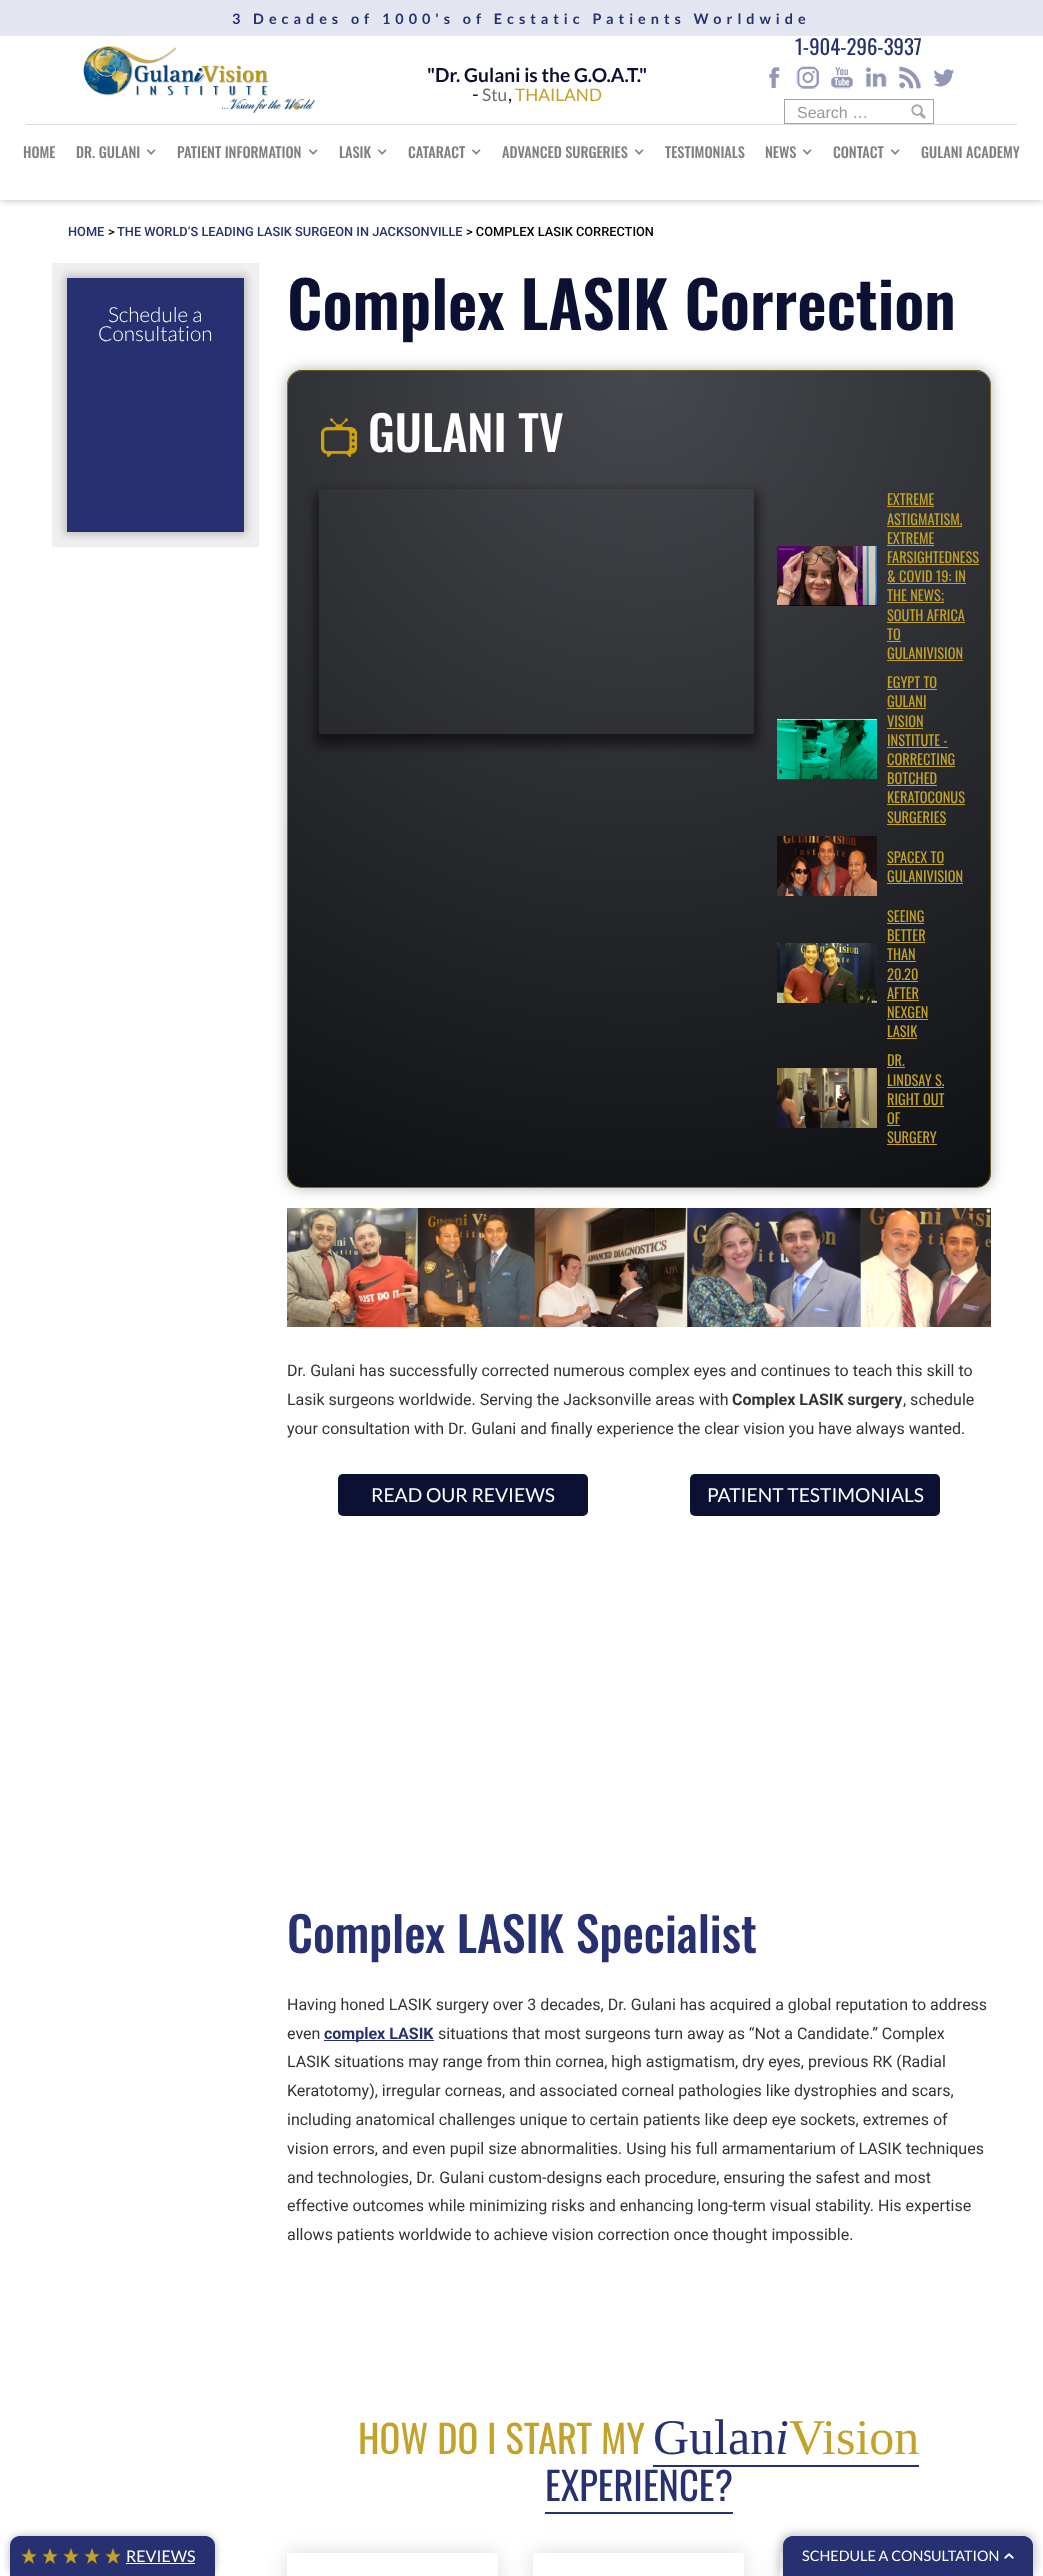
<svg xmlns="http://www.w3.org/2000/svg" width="1043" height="2576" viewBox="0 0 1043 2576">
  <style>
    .t1 { font: bold 14.4px Lato; letter-spacing: 5px; fill: #273070; }
    .t2 { font: bold 19.25px Lato; fill: #0c1033; }
    .t3 { font: 19.25px Lato; fill: #0c1033; }
    .t4 { font: 17.25px Lato; fill: #6a6b74; }
    .t5 { font: 17.25px Lato; fill: #c2a229; }
    .t6 { font: 20.75px Oswald; fill: #273070; }
    .t7 { font: 16px Liberation Sans; fill: #999; }
    .t8 { font: 500 14.4px Oswald; fill: #7f8081; }
    .t9 { font: 500 12.8px Roboto; fill: #273070; }
    .t10 { font: 500 12.8px Roboto; fill: #000; }
    .t11 { font: 300 20.75px Lato; fill: #fff; }
    .t12 { font: 600 64px Oswald; fill: #0c1033; }
    .t13 { font: 500 48px Oswald; fill: #fff; }
    .t14 { font: 14.4px Oswald; fill: #c2a229; }
    .t15 { font: 16px Roboto; fill: #333; }
    .t16 { font: bold 16px Roboto; fill: #333; }
    .t17 { font: 19.25px Lato; fill: #fff; }
    .t18 { font: 500 48px Oswald; fill: #273070; }
    .t19 { font: bold 16px Roboto; fill: #273070; }
    .t20 { font: 38.5px Oswald; fill: #c2a229; }
    .t21 { font: 50px Liberation Serif; fill: #273070; }
    .t22 { font: italic 50px Liberation Serif; fill: #273070; }
    .t23 { font: 50px Liberation Serif; fill: #c2a229; }
    .t24 { font: 38.5px Oswald; fill: #273070; }
    .t25 { font: 16px Lato; fill: #fff; }
    .t26 { font: 14.4px Lato; fill: #fff; }
  </style>
  <defs>
    <clipPath id="clip1"><rect x="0" y="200" width="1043" height="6"/></clipPath>
    <clipPath id="clip2"><rect x="287" y="370" width="704" height="818" rx="15"/></clipPath>
    <radialGradient id="g1" gradientUnits="userSpaceOnUse" cx="639" cy="-445" r="888"><stop offset="0" stop-color="#47484d"/><stop offset="1" stop-color="#0f1014"/></radialGradient>
    <radialGradient id="g2" gradientUnits="userSpaceOnUse" cx="-63" cy="371" r="888"><stop offset="0" stop-color="#47484d"/><stop offset="1" stop-color="#0f1014"/></radialGradient>
    <radialGradient id="g3" gradientUnits="userSpaceOnUse" cx="639" cy="371" r="888"><stop offset="0" stop-color="#47484d"/><stop offset="1" stop-color="#0f1014"/></radialGradient>
    <radialGradient id="g4" gradientUnits="userSpaceOnUse" cx="1341" cy="371" r="888"><stop offset="0" stop-color="#47484d"/><stop offset="1" stop-color="#0f1014"/></radialGradient>
    <radialGradient id="g5" gradientUnits="userSpaceOnUse" cx="639" cy="1187" r="888"><stop offset="0" stop-color="#47484d"/><stop offset="1" stop-color="#0f1014"/></radialGradient>
    <clipPath id="clip3"><path d="M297 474H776V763H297ZM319 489H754V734H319Z" clip-rule="evenodd"/></clipPath>
    <clipPath id="clip4"><path d="M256 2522H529V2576H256ZM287 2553H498V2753H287Z" clip-rule="evenodd"/></clipPath>
    <clipPath id="clip5"><path d="M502 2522H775V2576H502ZM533 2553H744V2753H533Z" clip-rule="evenodd"/></clipPath>
    <clipPath id="clip6"><path d="M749 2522H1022V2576H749ZM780 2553H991V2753H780Z" clip-rule="evenodd"/></clipPath>
  </defs>
  <rect width="100%" height="100%" fill="#fff"/>
  <g clip-path="url(#clip1)">
    <rect x="0" y="0" width="1043" height="200" fill="#00000045" filter="blur(4.5px)"/>
  </g>
  <rect x="0" y="0" width="1043" height="36" fill="#e3e5f1"/>
  <text x="232" y="24" class="t1">3 Decades of 1000's of Ecstatic Patients Worldwide</text>
  <rect x="26" y="124" width="991" height="1" fill="#d8dae5"/>
  <image x="83" y="46" width="232" height="68" href="images/1.png"/>
  <text x="427" y="82" class="t2">"Dr. Gulani is the G.O.A.T."</text>
  <text x="472" y="101" class="t3">-</text>
  <text x="482" y="101" class="t4">Stu</text>
  <text x="515" y="101" class="t5">THAILAND</text>
  <text x="508" y="101" class="t3">,</text>
  <text x="795" y="55" class="t6">1-904-296-3937</text>
  <image x="769" y="67" width="11" height="21" href="images/2.png"/>
  <image x="796" y="66" width="23" height="23" href="images/3.png"/>
  <image x="831" y="67" width="22" height="22" href="images/4.png"/>
  <image x="865" y="67" width="22" height="20" href="images/5.png"/>
  <image x="899" y="66" width="22" height="23" href="images/6.png"/>
  <image x="933" y="69" width="22" height="18" href="images/7.png"/>
  <image x="911" y="104" width="15" height="15" href="images/8.png"/>
  <rect x="784.5" y="99.5" width="149" height="24" fill="none" stroke="#a3a4a6"/>
  <text x="797" y="118" class="t7">Search …</text>
  <text x="23" y="158" class="t8">HOME</text>
  <text x="76" y="158" class="t8">DR. GULANI</text>
  <image x="147" y="149" width="9" height="6" href="images/9.png"/>
  <text x="177" y="158" class="t8">PATIENT INFORMATION</text>
  <image x="309" y="149" width="9" height="6" href="images/9.png"/>
  <text x="339" y="158" class="t8">LASIK</text>
  <image x="378" y="149" width="9" height="6" href="images/9.png"/>
  <text x="408" y="158" class="t8">CATARACT</text>
  <image x="472" y="149" width="9" height="6" href="images/9.png"/>
  <text x="502" y="158" class="t8">ADVANCED SURGERIES</text>
  <image x="635" y="149" width="9" height="6" href="images/9.png"/>
  <text x="665" y="158" class="t8">TESTIMONIALS</text>
  <text x="765" y="158" class="t8">NEWS</text>
  <image x="803" y="149" width="9" height="6" href="images/9.png"/>
  <text x="833" y="158" class="t8">CONTACT</text>
  <image x="891" y="149" width="9" height="6" href="images/9.png"/>
  <text x="921" y="158" class="t8">GULANI ACADEMY</text>
  <text x="68" y="236" class="t9">HOME</text>
  <text x="108" y="236" class="t10">&gt;</text>
  <text x="117" y="236" class="t9">THE WORLD’S LEADING LASIK SURGEON IN JACKSONVILLE</text>
  <text x="466" y="236" class="t10">&gt; COMPLEX LASIK CORRECTION</text>
  <rect x="52" y="263" width="207" height="284" fill="#f0f0f0"/>
  <rect x="64" y="275" width="183" height="260" fill="#00000033" filter="blur(4px)"/>
  <rect x="67" y="278" width="177" height="254" fill="#273070"/>
  <text x="108" y="322" class="t11">Schedule a</text>
  <text x="98" y="341" class="t11">Consultation</text>
  <text x="287" y="330" class="t12">Complex LASIK Correction</text>
  <rect x="287" y="370" width="704" height="818" rx="15" fill="#0000004d" filter="blur(7px)"/>
  <g clip-path="url(#clip2)">
    <rect x="297" y="370" width="684" height="1" fill="url(#g1)"/>
    <rect x="287" y="380" width="1" height="798" fill="url(#g2)"/>
    <rect x="288" y="371" width="702" height="816" fill="url(#g3)"/>
    <rect x="990" y="380" width="1" height="798" fill="url(#g4)"/>
    <rect x="297" y="1187" width="684" height="1" fill="url(#g5)"/>
  </g>
  <rect x="287.5" y="370.5" width="703" height="817" rx="14.5" fill="none" stroke="#c2a22985"/>
  <image x="321" y="418" width="36" height="39" href="images/10.png"/>
  <text x="368" y="452" class="t13">GULANI TV</text>
  <g clip-path="url(#clip3)">
    <rect x="315" y="492" width="443" height="253" fill="#00000085" filter="blur(5.5px)"/>
  </g>
  <image x="777" y="546" width="100" height="60" href="images/11.png"/>
  <text x="887" y="505" class="t14">EXTREME</text>
  <rect x="887" y="506" width="47" height="1" fill="#c2a229"/>
  <rect x="887" y="526" width="75" height="1" fill="#c2a229"/>
  <text x="887" y="525" class="t14">ASTIGMATISM,</text>
  <text x="887" y="544" class="t14">EXTREME</text>
  <rect x="887" y="545" width="47" height="1" fill="#c2a229"/>
  <text x="887" y="563" class="t14">FARSIGHTEDNESS</text>
  <rect x="887" y="564" width="92" height="1" fill="#c2a229"/>
  <text x="887" y="582" class="t14">&amp; COVID 19: IN</text>
  <rect x="887" y="583" width="79" height="1" fill="#c2a229"/>
  <text x="887" y="601" class="t14">THE NEWS;</text>
  <rect x="887" y="602" width="57" height="1" fill="#c2a229"/>
  <text x="887" y="621" class="t14">SOUTH AFRICA</text>
  <rect x="887" y="622" width="78" height="1" fill="#c2a229"/>
  <text x="887" y="640" class="t14">TO</text>
  <rect x="887" y="641" width="14" height="1" fill="#c2a229"/>
  <text x="887" y="659" class="t14">GULANIVISION</text>
  <rect x="887" y="660" width="76" height="1" fill="#c2a229"/>
  <image x="777" y="719" width="100" height="60" href="images/12.png"/>
  <text x="887" y="688" class="t14">EGYPT TO</text>
  <rect x="887" y="689" width="50" height="1" fill="#c2a229"/>
  <text x="887" y="707" class="t14">GULANI</text>
  <rect x="887" y="708" width="39" height="1" fill="#c2a229"/>
  <text x="887" y="727" class="t14">VISION</text>
  <rect x="887" y="728" width="36" height="1" fill="#c2a229"/>
  <text x="887" y="746" class="t14">INSTITUTE -</text>
  <rect x="887" y="747" width="61" height="1" fill="#c2a229"/>
  <text x="887" y="765" class="t14">CORRECTING</text>
  <rect x="887" y="766" width="68" height="1" fill="#c2a229"/>
  <text x="887" y="784" class="t14">BOTCHED</text>
  <rect x="887" y="785" width="50" height="1" fill="#c2a229"/>
  <text x="887" y="803" class="t14">KERATOCONUS</text>
  <rect x="887" y="804" width="78" height="1" fill="#c2a229"/>
  <text x="887" y="823" class="t14">SURGERIES</text>
  <rect x="887" y="824" width="59" height="1" fill="#c2a229"/>
  <image x="777" y="836" width="100" height="60" href="images/13.png"/>
  <text x="887" y="863" class="t14">SPACEX TO</text>
  <rect x="887" y="864" width="57" height="1" fill="#c2a229"/>
  <text x="887" y="882" class="t14">GULANIVISION</text>
  <rect x="887" y="883" width="76" height="1" fill="#c2a229"/>
  <image x="777" y="943" width="100" height="60" href="images/14.png"/>
  <text x="887" y="922" class="t14">SEEING</text>
  <rect x="887" y="923" width="37" height="1" fill="#c2a229"/>
  <text x="887" y="941" class="t14">BETTER</text>
  <rect x="887" y="942" width="38" height="1" fill="#c2a229"/>
  <text x="887" y="960" class="t14">THAN</text>
  <rect x="887" y="961" width="29" height="1" fill="#c2a229"/>
  <text x="887" y="980" class="t14">20.20</text>
  <rect x="887" y="981" width="31" height="1" fill="#c2a229"/>
  <text x="887" y="999" class="t14">AFTER</text>
  <rect x="887" y="1000" width="32" height="1" fill="#c2a229"/>
  <text x="887" y="1018" class="t14">NEXGEN</text>
  <rect x="887" y="1019" width="41" height="1" fill="#c2a229"/>
  <text x="887" y="1037" class="t14">LASIK</text>
  <rect x="887" y="1038" width="30" height="1" fill="#c2a229"/>
  <image x="777" y="1068" width="100" height="60" href="images/15.png"/>
  <text x="887" y="1066" class="t14">DR.</text>
  <rect x="887" y="1067" width="18" height="1" fill="#c2a229"/>
  <text x="887" y="1086" class="t14">LINDSAY S.</text>
  <rect x="887" y="1087" width="57" height="1" fill="#c2a229"/>
  <text x="887" y="1105" class="t14">RIGHT OUT</text>
  <rect x="887" y="1106" width="57" height="1" fill="#c2a229"/>
  <text x="887" y="1124" class="t14">OF</text>
  <rect x="887" y="1125" width="13" height="1" fill="#c2a229"/>
  <text x="887" y="1143" class="t14">SURGERY</text>
  <rect x="887" y="1144" width="50" height="1" fill="#c2a229"/>
  <image x="287" y="1208" width="704" height="119" href="images/16.png"/>
  <text x="287" y="1376" class="t15">Dr. Gulani has successfully corrected numerous complex eyes and continues to teach this skill to</text>
  <text x="287" y="1405" class="t15">Lasik surgeons worldwide. Serving the Jacksonville areas with</text>
  <text x="732" y="1405" class="t16">Complex LASIK surgery</text>
  <text x="903" y="1405" class="t15">, schedule</text>
  <text x="287" y="1434" class="t15">your consultation with Dr. Gulani and finally experience the clear vision you have always wanted.</text>
  <rect x="338" y="1474" width="250" height="42" rx="5" fill="#0c1033"/>
  <text x="371" y="1502" class="t17">READ OUR REVIEWS</text>
  <rect x="690" y="1474" width="250" height="42" rx="5" fill="#0c1033"/>
  <text x="707" y="1502" class="t17">PATIENT TESTIMONIALS</text>
  <text x="287" y="1953" class="t18">Complex LASIK Specialist</text>
  <text x="287" y="2010" class="t15">Having honed LASIK surgery over 3 decades, Dr. Gulani has acquired a global reputation to address</text>
  <text x="287" y="2039" class="t15">even</text>
  <rect x="324" y="2040" width="110" height="1" fill="#273070"/>
  <text x="324" y="2039" class="t19">complex LASIK</text>
  <text x="438" y="2039" class="t15">situations that most surgeons turn away as “Not a Candidate.” Complex</text>
  <text x="287" y="2067" class="t15">LASIK situations may range from thin cornea, high astigmatism, dry eyes, previous RK (Radial</text>
  <text x="287" y="2096" class="t15">Keratotomy), irregular corneas, and associated corneal pathologies like dystrophies and scars,</text>
  <text x="287" y="2125" class="t15">including anatomical challenges unique to certain patients like deep eye sockets, extremes of</text>
  <text x="287" y="2154" class="t15">vision errors, and even pupil size abnormalities. Using his full armamentarium of LASIK techniques</text>
  <text x="287" y="2183" class="t15">and technologies, Dr. Gulani custom-designs each procedure, ensuring the safest and most</text>
  <text x="287" y="2211" class="t15">effective outcomes while minimizing risks and enhancing long-term visual stability. His expertise</text>
  <text x="287" y="2240" class="t15">allows patients worldwide to achieve vision correction once thought impossible.</text>
  <text x="358" y="2454" class="t20">HOW DO I START MY</text>
  <text x="653" y="2454" class="t21">Gulan</text>
  <text x="775" y="2454" class="t22">i</text>
  <text x="789" y="2454" class="t23">Vision</text>
  <text x="545" y="2501" class="t24">EXPERIENCE?</text>
  <rect x="653" y="2465" width="266" height="2" fill="#273070"/>
  <rect x="545" y="2512" width="188" height="2" fill="#273070"/>
  <g clip-path="url(#clip4)">
    <rect x="287" y="2553" width="211" height="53" fill="#00000024" filter="blur(10px)"/>
  </g>
  <g clip-path="url(#clip5)">
    <rect x="533" y="2553" width="211" height="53" fill="#00000024" filter="blur(10px)"/>
  </g>
  <g clip-path="url(#clip6)">
    <rect x="780" y="2553" width="211" height="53" fill="#00000024" filter="blur(10px)"/>
  </g>
  <rect x="10" y="2536" width="205" height="40" rx="10" fill="#00000047" filter="blur(4px)"/>
  <path d="M20 2536H205C210.5 2536 215 2540.5 215 2546V2576H10V2546C10 2540.5 14.5 2536 20 2536Z" fill="#273070"/>
  <image x="21" y="2548" width="16" height="16" href="images/17.png"/>
  <image x="42" y="2548" width="16" height="16" href="images/17.png"/>
  <image x="63" y="2548" width="16" height="16" href="images/17.png"/>
  <image x="84" y="2548" width="16" height="16" href="images/17.png"/>
  <image x="105" y="2548" width="16" height="16" href="images/17.png"/>
  <text x="126" y="2562" class="t25">REVIEWS</text>
  <rect x="126" y="2563" width="69" height="1" fill="#fff"/>
  <rect x="780" y="2533" width="256" height="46" rx="13" fill="#00000033" filter="blur(4px)"/>
  <path d="M793 2536H1023C1028.5 2536 1033 2540.5 1033 2546V2576H783V2546C783 2540.5 787.5 2536 793 2536Z" fill="#273070"/>
  <text x="802" y="2561" class="t26">SCHEDULE A CONSULTATION</text>
  <image x="1004" y="2553" width="10" height="6" href="images/18.png"/>
</svg>
